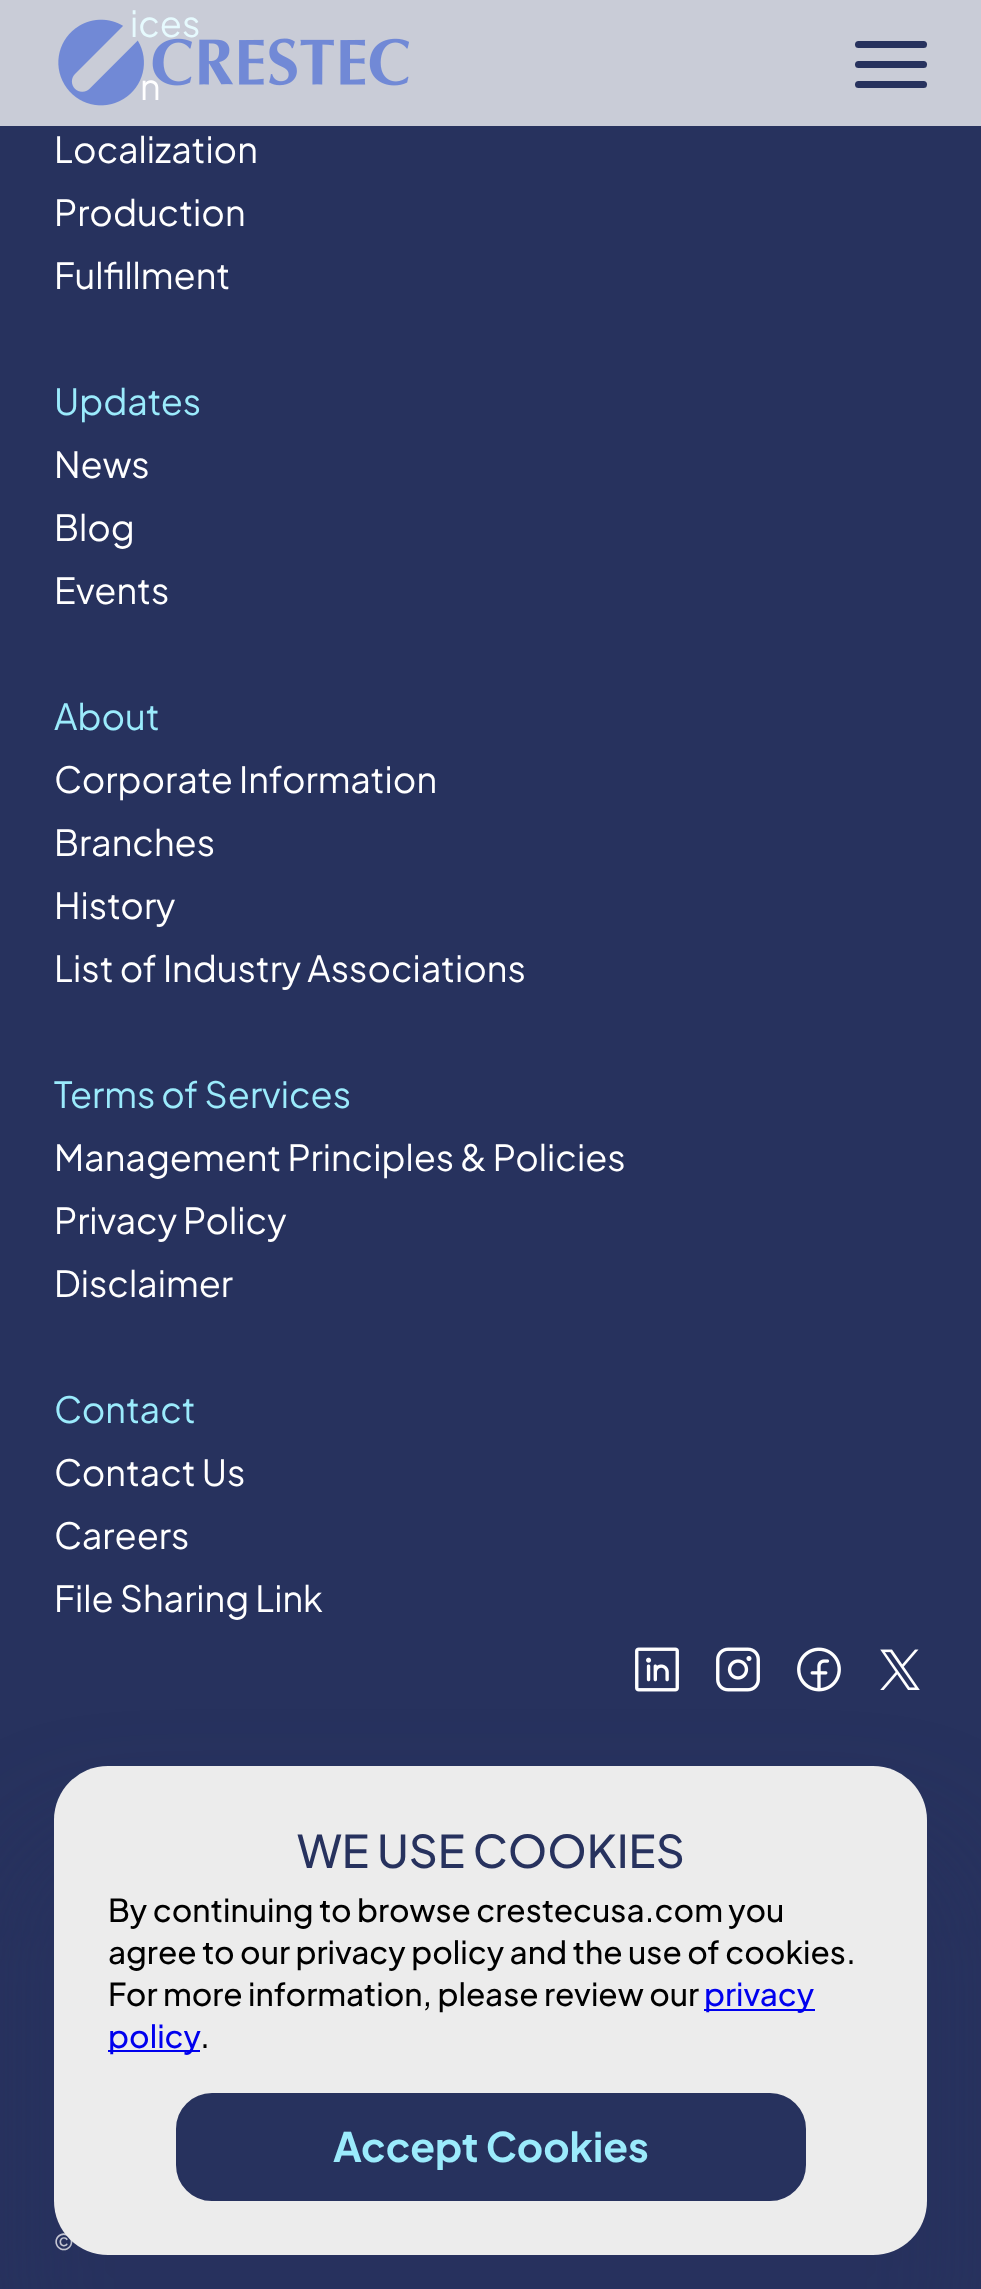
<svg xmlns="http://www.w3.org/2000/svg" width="981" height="2289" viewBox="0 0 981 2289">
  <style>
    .t1 { font: 36px Plus Jakarta Sans; fill: #e6fafe; }
    .t2 { font: 36px Plus Jakarta Sans; fill: #fff; }
    .t3 { font: 36px Plus Jakarta Sans; fill: #9bebfc; }
    .t4 { font: 22px Plus Jakarta Sans; fill: #fff; }
    .t5 { font: 500 45px Plus Jakarta Sans; fill: #27325e; }
    .t6 { font: 500 31.5px Plus Jakarta Sans; fill: #000; }
    .t7 { font: 500 31.5px Plus Jakarta Sans; fill: #00e; }
    .t8 { font: bold 40.5px Plus Jakarta Sans; fill: #9bebfc; }
  </style>
  <rect width="100%" height="100%" fill="#27325e"/>
  <rect x="0" y="0" width="981" height="126" fill="#c9ccd7"/>
  <text x="130" y="37" class="t1">ices</text>
  <text x="140" y="100" class="t2">n</text>
  <text x="54" y="163" class="t2">Localization</text>
  <text x="54" y="226" class="t2">Production</text>
  <text x="54" y="289" class="t2">Fulfillment</text>
  <text x="54" y="415" class="t3">Updates</text>
  <text x="54" y="478" class="t2">News</text>
  <text x="54" y="541" class="t2">Blog</text>
  <text x="54" y="604" class="t2">Events</text>
  <text x="54" y="730" class="t3">About</text>
  <text x="54" y="793" class="t2">Corporate Information</text>
  <text x="54" y="856" class="t2">Branches</text>
  <text x="54" y="919" class="t2">History</text>
  <text x="54" y="982" class="t2">List of Industry Associations</text>
  <text x="54" y="1108" class="t3">Terms of Services</text>
  <text x="54" y="1171" class="t2">Management Principles &amp; Policies</text>
  <text x="54" y="1234" class="t2">Privacy Policy</text>
  <text x="54" y="1297" class="t2">Disclaimer</text>
  <text x="54" y="1423" class="t3">Contact</text>
  <text x="54" y="1486" class="t2">Contact Us</text>
  <text x="54" y="1549" class="t2">Careers</text>
  <text x="54" y="1612" class="t2">File Sharing Link</text>
  <image x="635" y="1647" width="44" height="45" href="images/1.png"/>
  <image x="716" y="1647" width="44" height="45" href="images/2.png"/>
  <image x="797" y="1647" width="44" height="45" href="images/3.png"/>
  <image x="880" y="1649" width="40" height="41" href="images/4.png"/>
  <text x="54" y="2250" class="t4">©</text>
  <image x="58" y="19" width="351" height="87" href="images/5.png"/>
  <rect x="855" y="61" width="72" height="7" rx="3.5" fill="#27325e"/>
  <rect x="855" y="41" width="72" height="7" rx="3.5" fill="#27325e"/>
  <rect x="855" y="81" width="72" height="7" rx="3.5" fill="#27325e"/>
  <rect x="9" y="1829" width="963" height="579" rx="99" fill="#27325e54" filter="blur(54px)"/>
  <rect x="54" y="1766" width="873" height="489" rx="54" fill="#ececec"/>
  <text x="297" y="1868" class="t5">WE USE COOKIES</text>
  <text x="108" y="1922" class="t6">By continuing to browse crestecusa.com you</text>
  <text x="108" y="1964" class="t6">agree to our privacy policy and the use of cookies.</text>
  <text x="108" y="2006" class="t6">For more information, please review our</text>
  <rect x="704" y="2009" width="111" height="2" fill="#00e"/>
  <text x="704" y="2006" class="t7">privacy</text>
  <rect x="108" y="2050" width="92" height="2" fill="#00e"/>
  <text x="108" y="2048" class="t7">policy</text>
  <text x="200" y="2048" class="t6">.</text>
  <rect x="177" y="2094" width="628" height="106" rx="35" fill="#27325e" stroke="#27325e" stroke-width="2"/>
  <text x="333" y="2162" class="t8">Accept Cookies</text>
</svg>
